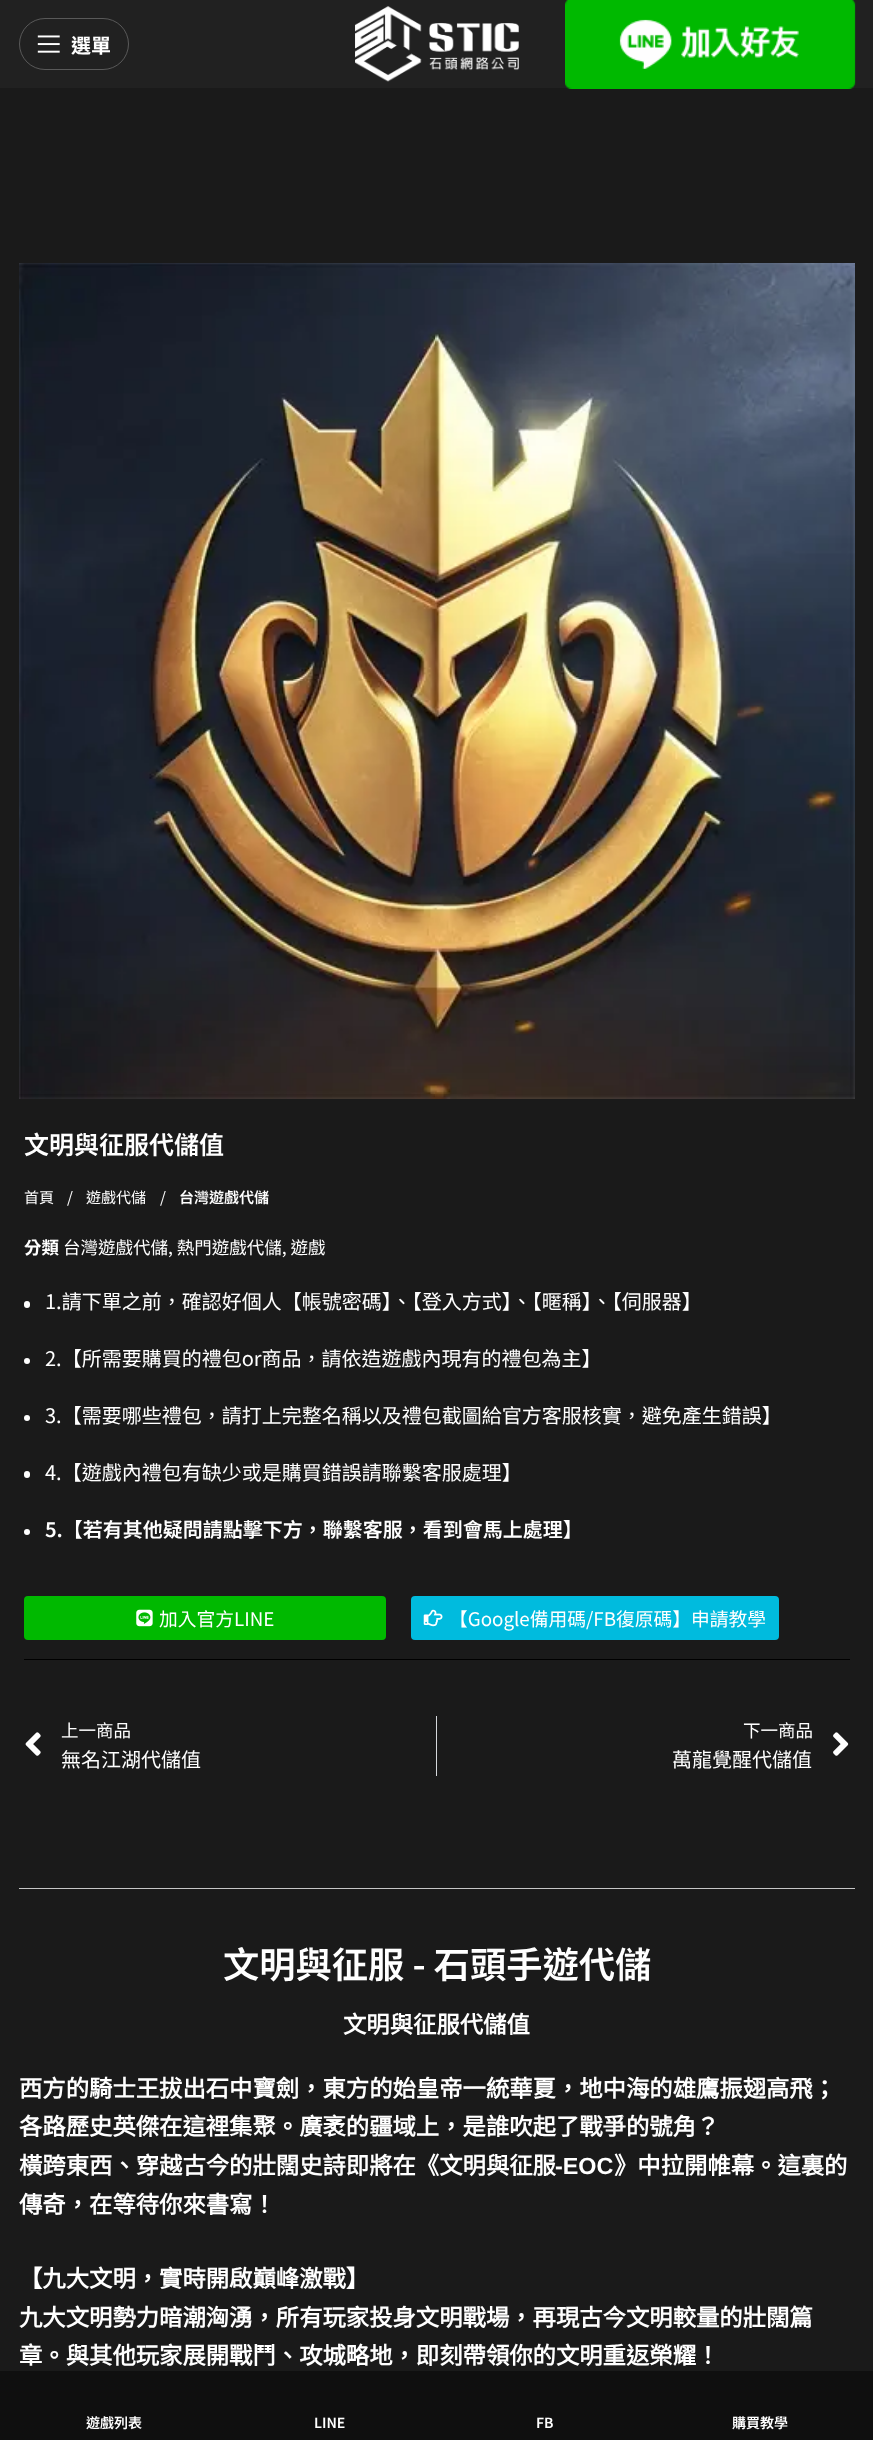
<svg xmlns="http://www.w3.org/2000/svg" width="873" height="2440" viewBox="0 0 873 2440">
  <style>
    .t1 { font: bold 20px Noto Sans TC; fill: #fff; }
    .t2 { font: 600 25px Noto Sans TC; fill: #fff; }
    .t3 { font: 15px Noto Sans TC; fill: #fff; }
    .t4 { font: 600 15px Noto Sans TC; fill: #fff; }
    .t5 { font: bold 17.5px Noto Sans TC; fill: #fff; }
    .t6 { font: 17.5px Noto Sans TC; fill: #fff; }
    .t7 { font: 20px Noto Sans TC; fill: #fff; }
    .t8 { font: 600 20px Noto Sans TC; fill: #fff; }
    .t9 { font: 18.75px Noto Sans TC; fill: #fff; }
    .t10 { font: 600 36.25px Noto Sans TC; fill: #fff; }
    .t11 { font: bold 23.35px Noto Sans CJK TC; fill: #fff; }
    .t12 { font: bold 23.35px Liberation Sans; fill: #fff; }
    .t13 { font: 600 14px Noto Sans TC; fill: #fff; }
  </style>
  <rect width="100%" height="100%" fill="#1a1a1a"/>
  <rect x="0" y="0" width="873" height="88" fill="#212121"/>
  <rect x="19.5" y="18.5" width="109" height="51" rx="25.5" fill="none" stroke="#595959"/>
  <image x="37" y="35" width="23" height="18" href="images/1.png"/>
  <text x="71" y="53" class="t1">選單</text>
  <image x="355" y="6" width="164" height="76" href="images/2.png"/>
  <image x="565" y="0" width="291" height="89" href="images/3.png"/>
  <image x="19" y="263" width="836" height="836" href="images/4.png"/>
  <text x="24" y="1154" class="t2">文明與征服代儲值</text>
  <text x="24" y="1203" class="t3">首頁</text>
  <text x="67" y="1203" class="t3">/</text>
  <text x="86" y="1203" class="t3">遊戲代儲</text>
  <text x="160" y="1203" class="t3">/</text>
  <text x="179" y="1203" class="t4">台灣遊戲代儲</text>
  <text x="24" y="1254" class="t5">分類</text>
  <text x="63" y="1254" class="t6">台灣遊戲代儲, 熱門遊戲代儲, 遊戲</text>
  <rect x="24" y="1301" width="6" height="7" rx="3" fill="#fff"/>
  <text x="45" y="1309" class="t7">1.請下單之前，確認好個人【帳號密碼】、【登入方式】、【暱稱】、【伺服器】</text>
  <circle cx="27" cy="1361" r="3" fill="#fff"/>
  <text x="45" y="1366" class="t7">2.【所需要購買的禮包or商品，請依造遊戲內現有的禮包為主】</text>
  <circle cx="27" cy="1418" r="3" fill="#fff"/>
  <text x="45" y="1423" class="t7">3.【需要哪些禮包，請打上完整名稱以及禮包截圖給官方客服核實，避免產生錯誤】</text>
  <rect x="24" y="1471" width="6" height="7" rx="3" fill="#fff"/>
  <text x="45" y="1480" class="t7">4.【遊戲內禮包有缺少或是購買錯誤請聯繫客服處理】</text>
  <circle cx="27" cy="1532" r="3" fill="#fff"/>
  <text x="45" y="1537" class="t8">5.【若有其他疑問請點擊下方，聯繫客服，看到會馬上處理】</text>
  <rect x="24" y="1596" width="362" height="44" rx="4" fill="#00b900"/>
  <image x="136" y="1609" width="17" height="18" href="images/5.png"/>
  <text x="159" y="1626" class="t9">加入官方LINE</text>
  <rect x="411" y="1596" width="368" height="44" rx="4" fill="#00bbde"/>
  <image x="423" y="1609" width="20" height="18" href="images/6.png"/>
  <text x="449" y="1626" class="t9">【Google備用碼/FB復原碼】申請教學</text>
  <rect x="24" y="1659" width="826" height="1" fill="#000"/>
  <image x="25" y="1732" width="16" height="24" href="images/7.png"/>
  <text x="61" y="1737" class="t6">上一商品</text>
  <text x="61" y="1767" class="t7">無名江湖代儲值</text>
  <rect x="436" y="1716" width="1" height="60" fill="#d5d8dc"/>
  <text x="743" y="1737" class="t6">下一商品</text>
  <text x="672" y="1767" class="t7">萬龍覺醒代儲值</text>
  <image x="833" y="1732" width="16" height="24" href="images/8.png"/>
  <rect x="19" y="1888" width="836" height="1" fill="#c6c6c6"/>
  <text x="223" y="1978" class="t10">文明與征服 - 石頭手遊代儲</text>
  <text x="343" y="2033" class="t11">文明與征服代儲值</text>
  <text x="19" y="2097" class="t11">西方的騎士王拔出石中寶劍，東方的始皇帝一統華夏，地中海的雄鷹振翅高飛；</text>
  <text x="19" y="2135" class="t11">各路歷史英傑在這裡集聚。廣袤的疆域上，是誰吹起了戰爭的號角？</text>
  <text x="19" y="2174" class="t11">橫跨東西、穿越古今的壯闊史詩即將在《文明與征服</text>
  <text x="555" y="2174" class="t12">-EOC</text>
  <text x="614" y="2174" class="t11">》中拉開帷幕。這裏的</text>
  <text x="19" y="2213" class="t11">傳奇，在等待你來書寫！</text>
  <text x="19" y="2287" class="t11">【九大文明，實時開啟巔峰激戰】</text>
  <text x="19" y="2326" class="t11">九大文明勢力暗潮洶湧，所有玩家投身文明戰場，再現古今文明較量的壯闊篇</text>
  <text x="19" y="2364" class="t11">章。與其他玩家展開戰鬥、攻城略地，即刻帶領你的文明重返榮耀！</text>
  <rect x="0" y="2371" width="873" height="69" fill="#0f0f0f"/>
  <text x="86" y="2428" class="t13">遊戲列表</text>
  <text x="314" y="2428" class="t13">LINE</text>
  <text x="536" y="2428" class="t13">FB</text>
  <text x="732" y="2428" class="t13">購買教學</text>
</svg>
